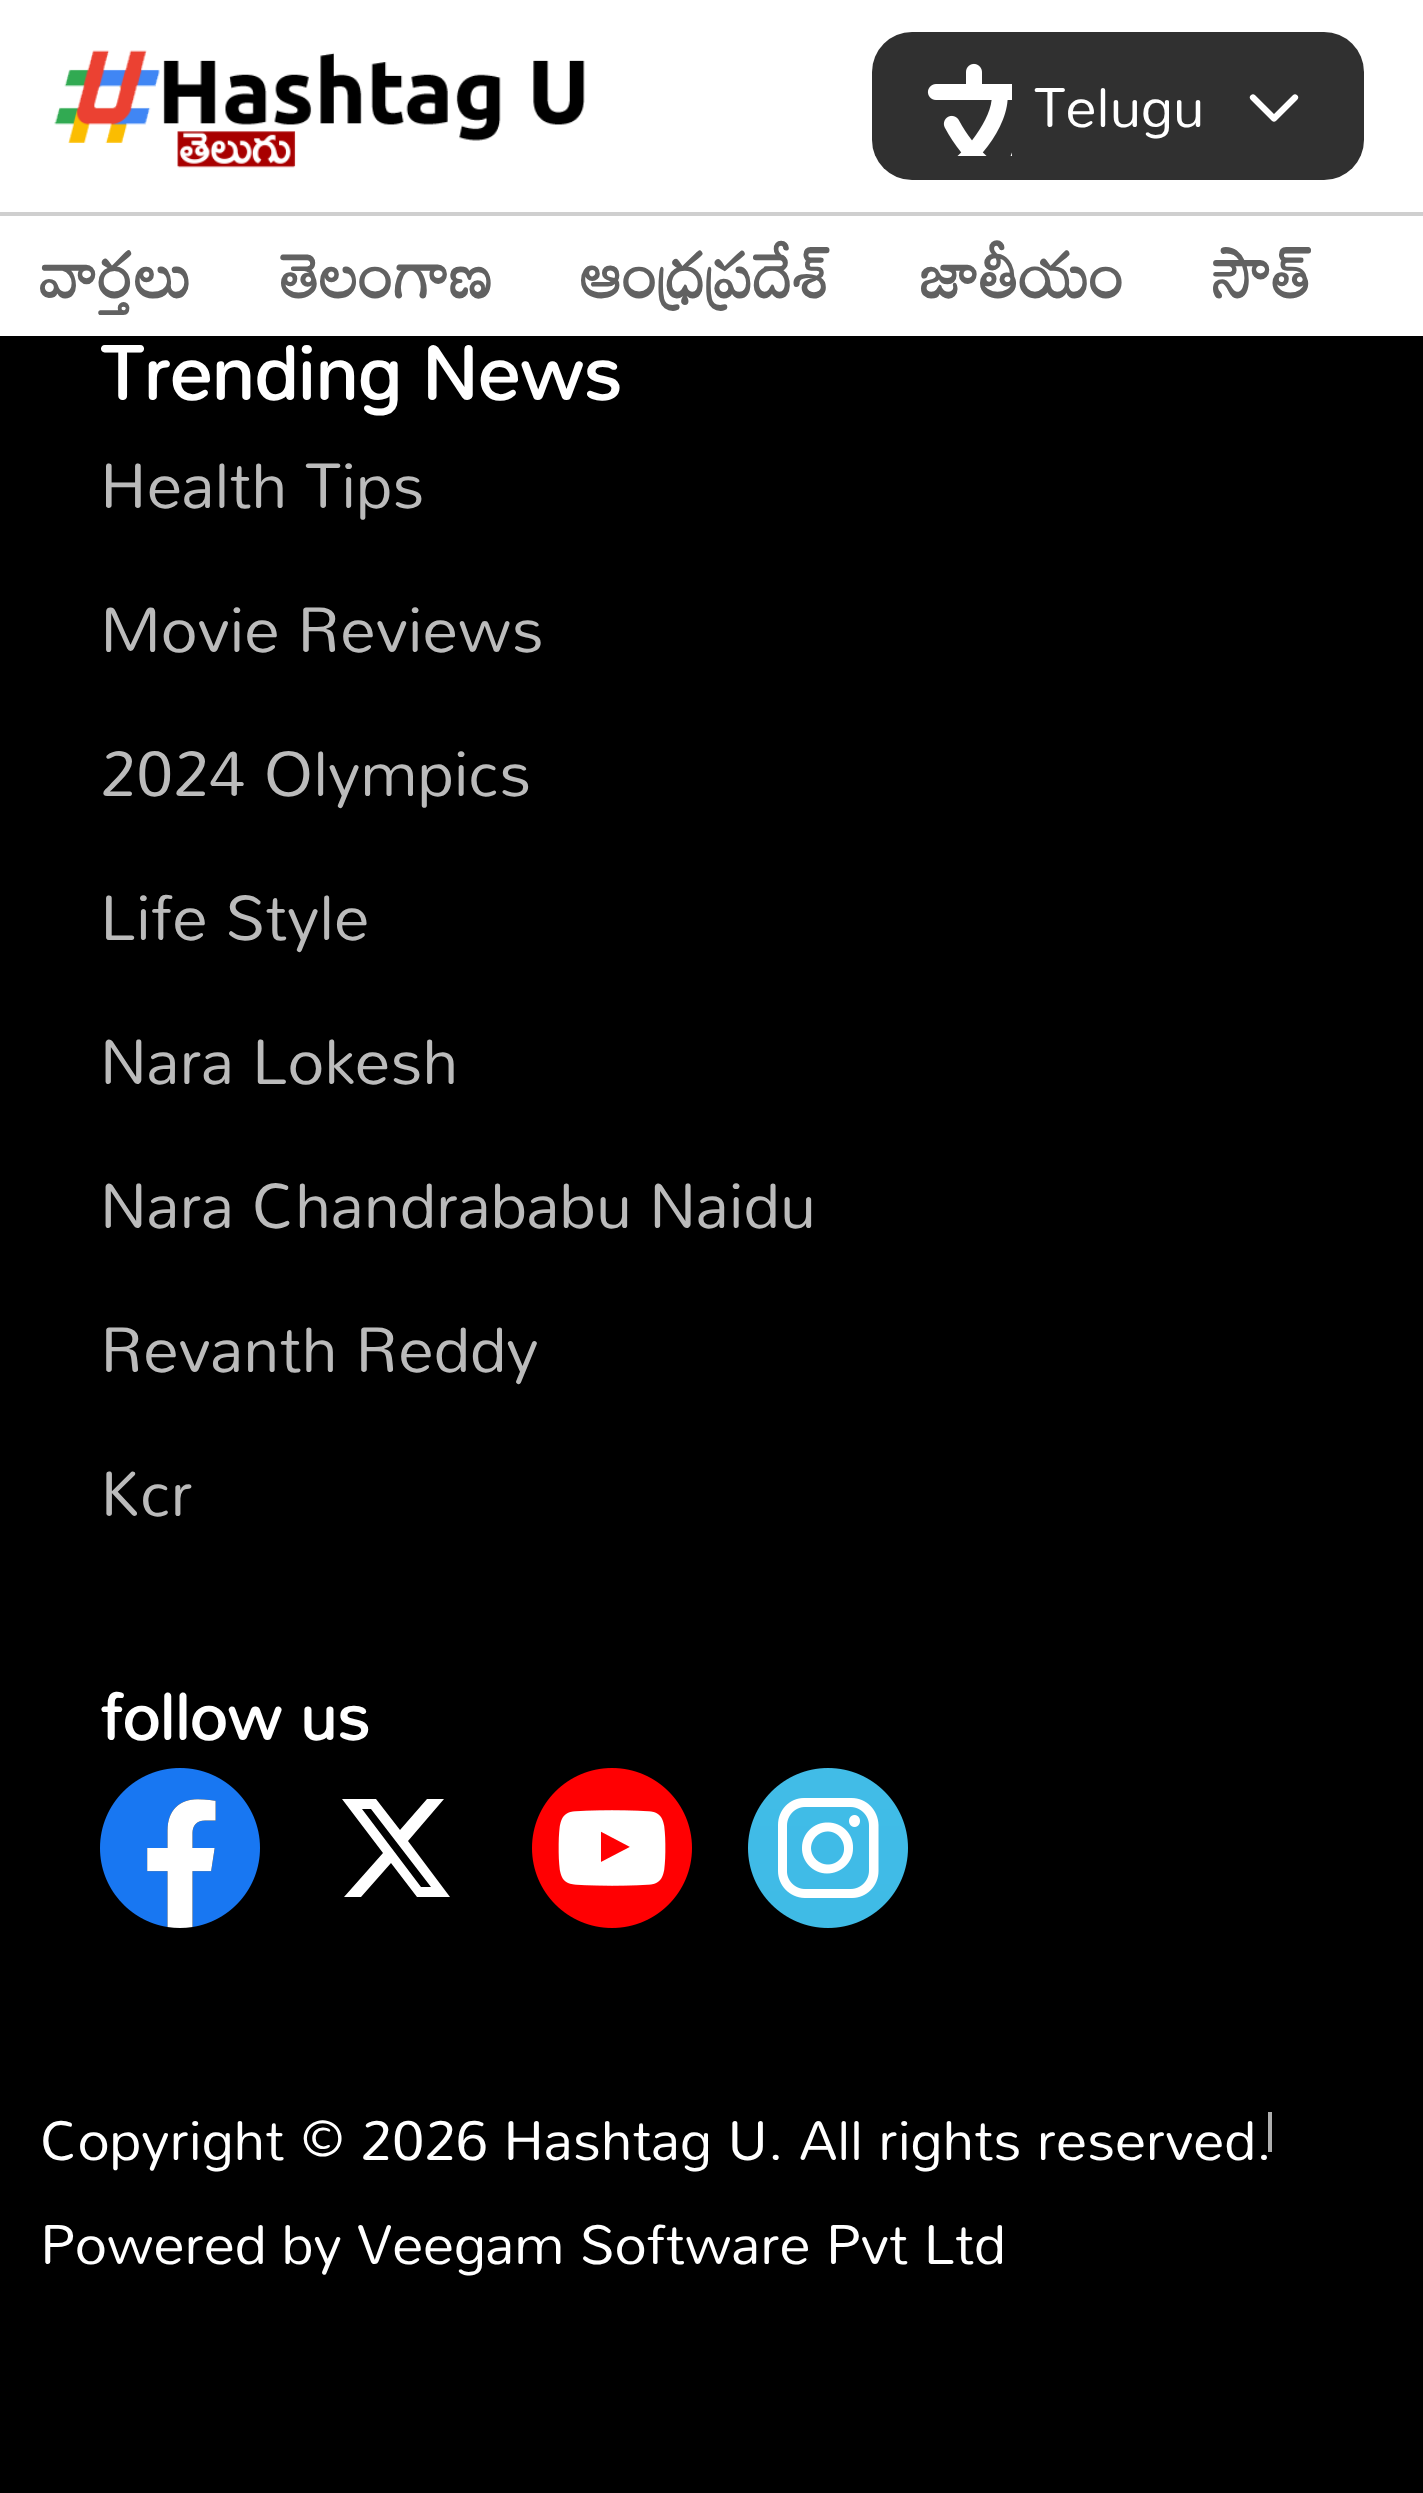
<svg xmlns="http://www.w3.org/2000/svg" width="1423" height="2493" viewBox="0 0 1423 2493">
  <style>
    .t1 { font: 56px Mandali; fill: #fff; }
    .t2 { font: bold 64px Mandali; fill: #616161; }
    .t3 { font: bold 76px Mandali; fill: #fff; }
    .t4 { font: 64px Mandali; fill: #bbb; }
    .t5 { font: bold 65.5px Mandali; fill: #fff; }
  </style>
  <rect width="100%" height="100%" fill="#000"/>
  <rect x="0" y="0" width="1423" height="336" fill="#fff"/>
  <image x="54" y="50" width="531" height="118" href="images/1.png"/>
  <rect x="872" y="32" width="492" height="148" rx="40" fill="#303030"/>
  <image x="927" y="63" width="85" height="93" href="images/2.png"/>
  <text x="1034" y="127" class="t1">Telugu</text>
  <path d="M1253 97.5L1274 118.5L1295 97.5" fill="none" stroke="#fff" stroke-width="6.2" stroke-linecap="round" stroke-linejoin="round"/>
  <rect x="0" y="212" width="1423" height="4" fill="#cfcfcf"/>
  <text x="40" y="298" class="t2">వార్తలు</text>
  <text x="281" y="298" class="t2">తెలంగాణ</text>
  <text x="581" y="298" class="t2">ఆంధ్రప్రదేశ్</text>
  <text x="921" y="298" class="t2">జాతీయం</text>
  <text x="1213" y="298" class="t2">సౌత్</text>
  <text x="100" y="400" class="t3">Trending News</text>
  <text x="100" y="508" class="t4">Health Tips</text>
  <text x="100" y="652" class="t4">Movie Reviews</text>
  <text x="100" y="796" class="t4">2024 Olympics</text>
  <text x="100" y="940" class="t4">Life Style</text>
  <text x="100" y="1084" class="t4">Nara Lokesh</text>
  <text x="100" y="1228" class="t4">Nara Chandrababu Naidu</text>
  <text x="100" y="1372" class="t4">Revanth Reddy</text>
  <text x="100" y="1516" class="t4">Kcr</text>
  <text x="100" y="1740" class="t5">follow us</text>
  <image x="100" y="1768" width="160" height="160" href="images/3.png"/>
  <path d="M427 1799H444L408 1841L450 1897H417L391 1863L361 1897H344L383 1853L342 1799H376L400 1830ZM421 1887H431L371 1809H362Z" fill="#fff"/>
  <image x="532" y="1768" width="160" height="160" href="images/4.png"/>
  <image x="748" y="1768" width="160" height="160" href="images/5.png"/>
  <text x="40" y="2160" class="t1">Copyright © 2026 Hashtag U. All rights reserved.</text>
  <rect x="1268" y="2112" width="4" height="40" fill="#afafaf"/>
  <text x="40" y="2264" class="t1">Powered by Veegam Software Pvt Ltd</text>
</svg>
